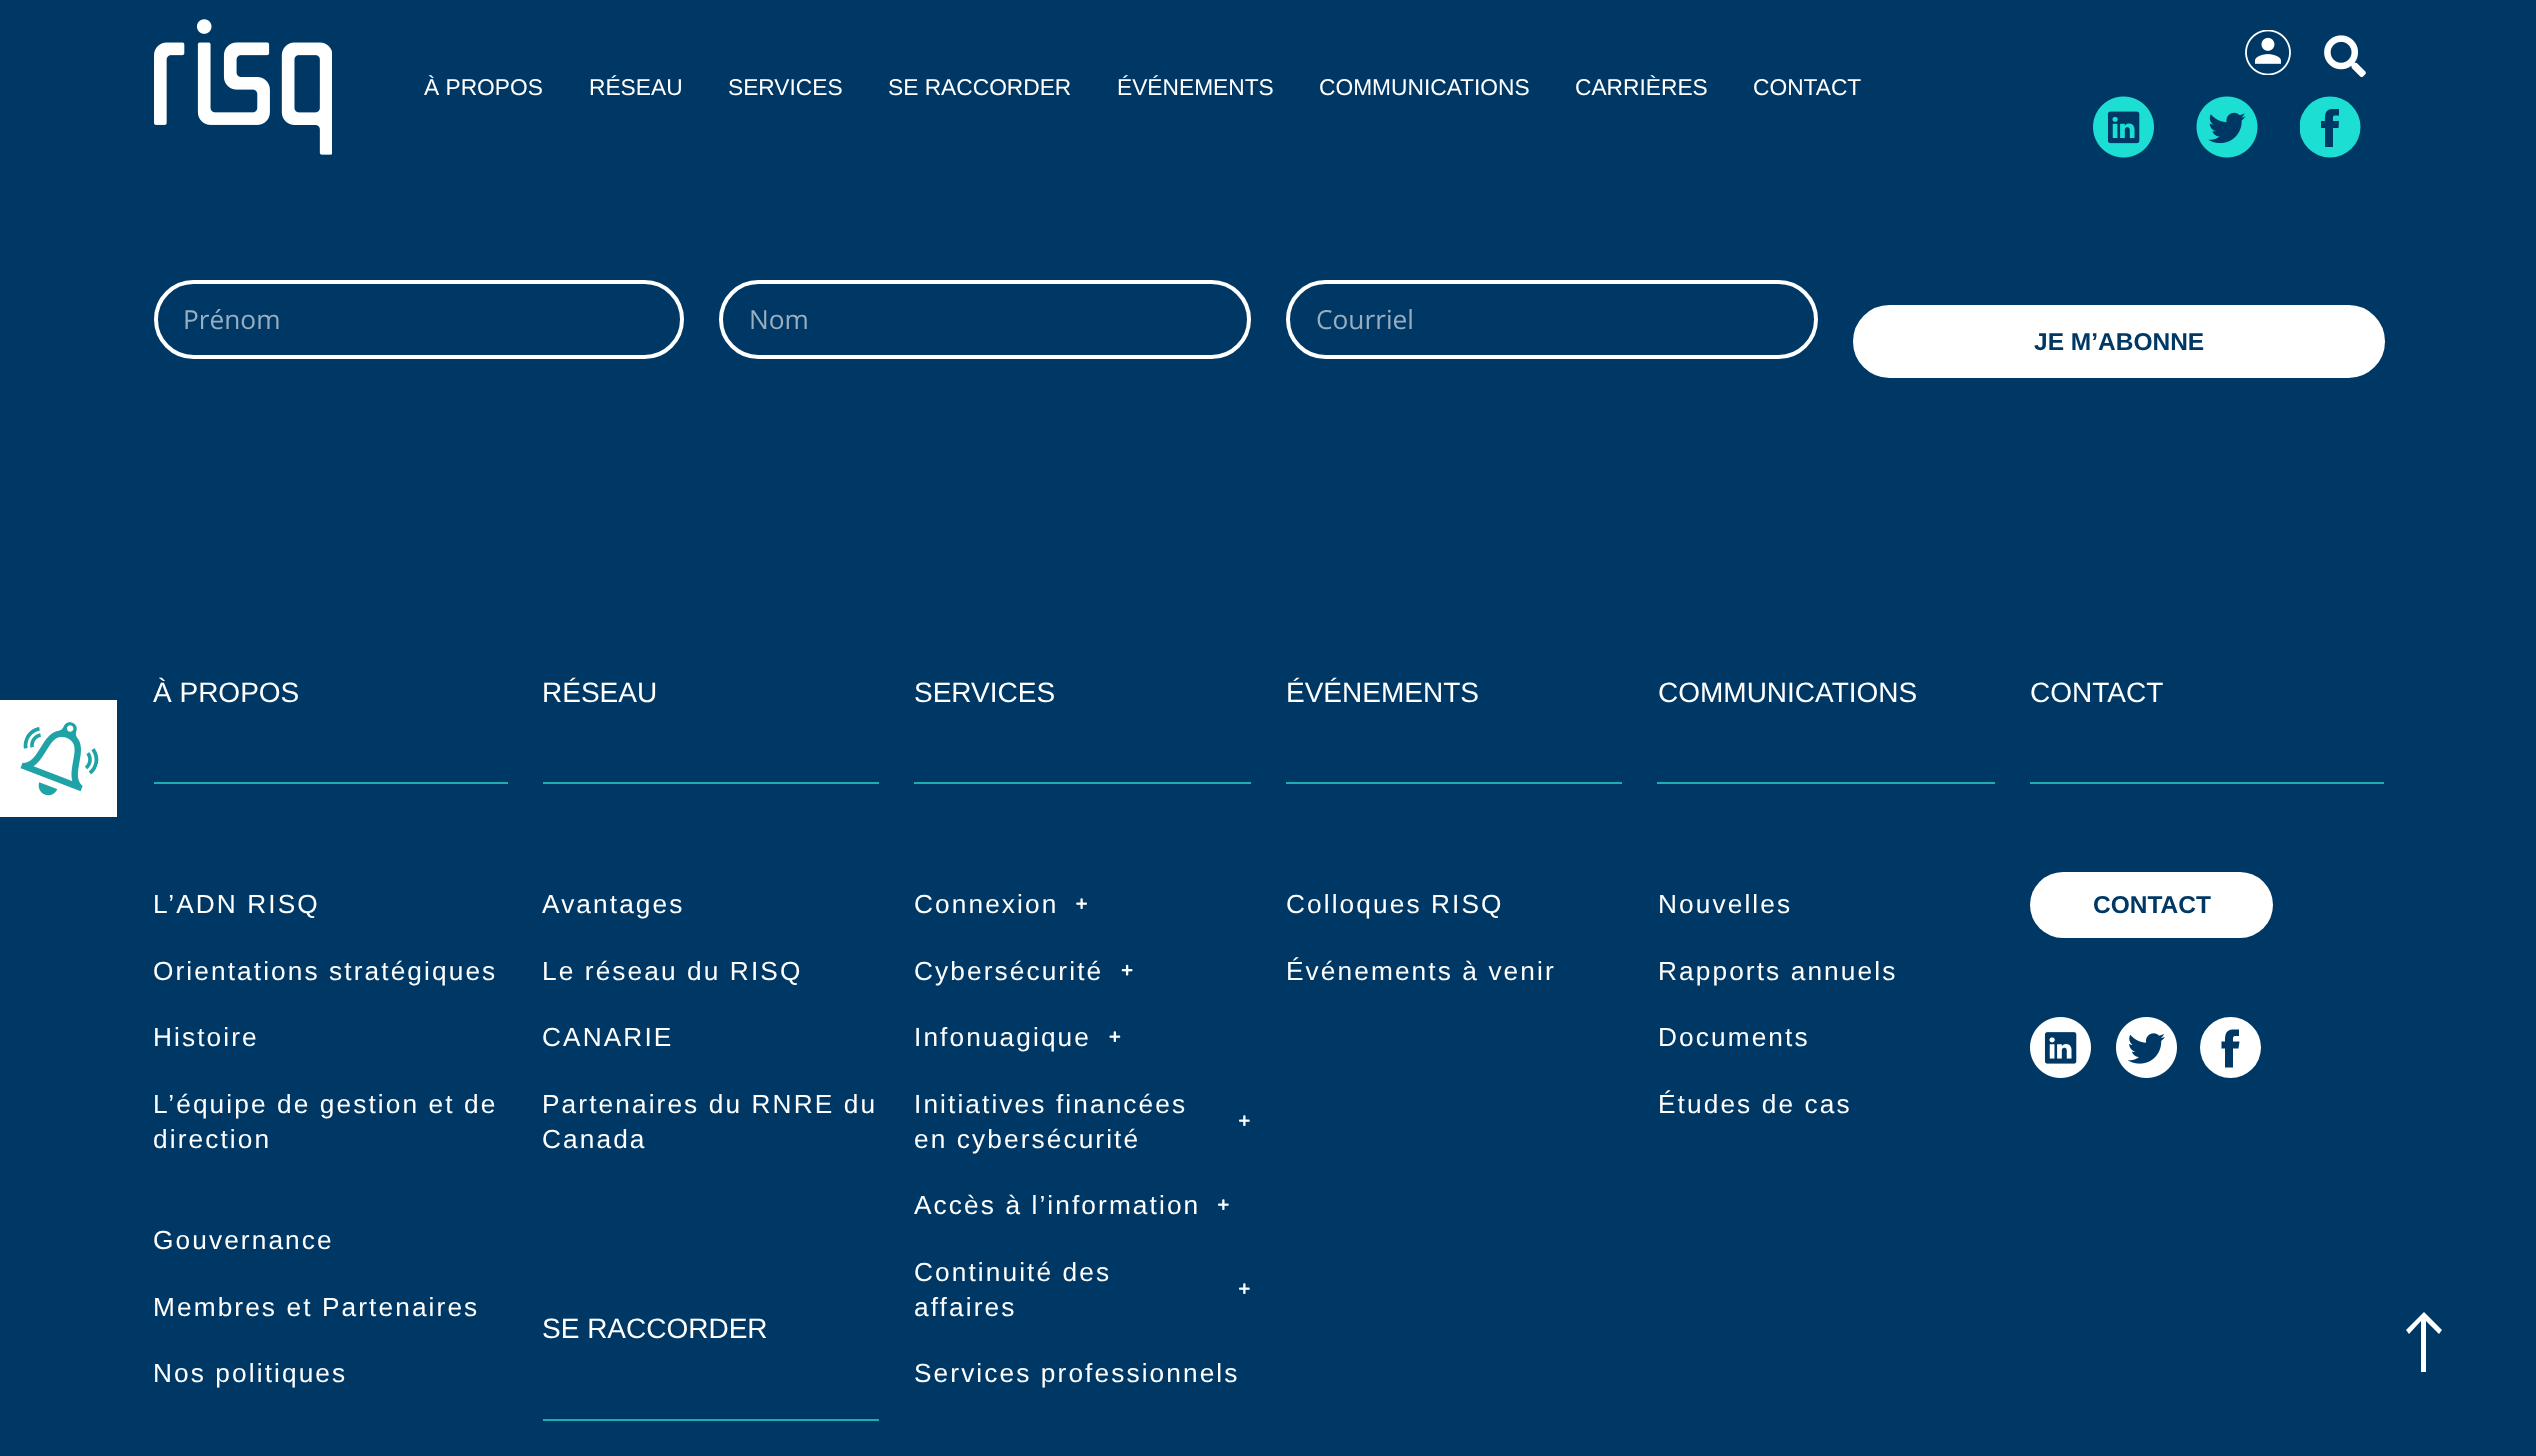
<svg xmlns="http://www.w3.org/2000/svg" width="2536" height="1456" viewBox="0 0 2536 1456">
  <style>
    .t1 { font: 22.75px Liberation Sans; fill: #fff; }
    .t2 { font: 26.25px Open Sans; fill: #99afc1; }
    .t3 { font: bold 24.5px Liberation Sans; fill: #003865; }
    .t4 { font: 28px Liberation Sans; fill: #fff; }
    .t5 { font: 26.25px Liberation Sans; letter-spacing: 2.1px; fill: #fff; }
  </style>
  <defs>
    <clipPath id="clip1"><rect x="2300" y="96" width="61" height="62"/></clipPath>
  </defs>
  <rect width="100%" height="100%" fill="#003865"/>
  <image x="154" y="19" width="178" height="136" href="images/1.png"/>
  <text x="424" y="95" class="t1">À PROPOS</text>
  <text x="589" y="95" class="t1">RÉSEAU</text>
  <text x="728" y="95" class="t1">SERVICES</text>
  <text x="888" y="95" class="t1">SE RACCORDER</text>
  <text x="1117" y="95" class="t1">ÉVÉNEMENTS</text>
  <text x="1319" y="95" class="t1">COMMUNICATIONS</text>
  <text x="1575" y="95" class="t1">CARRIÈRES</text>
  <text x="1753" y="95" class="t1">CONTACT</text>
  <image x="2245" y="30" width="46" height="45" href="images/2.png"/>
  <image x="2324" y="35" width="42" height="43" href="images/3.png"/>
  <image x="2093" y="96" width="61" height="62" href="images/4.png"/>
  <image x="2196" y="96" width="62" height="62" href="images/5.png"/>
  <g clip-path="url(#clip1)">
    <circle cx="2330" cy="127" r="30.5" fill="#1dded3"/>
  </g>
  <path d="M2338.5 128H2333V147H2325V128H2321V121H2325C2325 116 2324.5 109.5 2331.5 109H2339V115.5C2332.5 115.5 2333 114.5 2333 121H2339Z" fill="#003865"/>
  <rect x="156" y="282" width="526" height="75" rx="37.5" fill="none" stroke="#fff" stroke-width="4"/>
  <text x="183" y="329" class="t2">Prénom</text>
  <rect x="721" y="282" width="528" height="75" rx="37.5" fill="none" stroke="#fff" stroke-width="4"/>
  <text x="749" y="329" class="t2">Nom</text>
  <rect x="1288" y="282" width="528" height="75" rx="37.5" fill="none" stroke="#fff" stroke-width="4"/>
  <text x="1316" y="329" class="t2">Courriel</text>
  <rect x="1855" y="307" width="528" height="69" rx="34.5" fill="#fff" stroke="#fff" stroke-width="4"/>
  <text x="2034" y="350" class="t3">JE M’ABONNE</text>
  <rect x="0" y="700" width="117" height="117" fill="#fff"/>
  <image x="20" y="722" width="79" height="74" href="images/6.png"/>
  <text x="153" y="702" class="t4">À PROPOS</text>
  <rect x="154" y="782" width="354" height="2" fill="#21acb0"/>
  <text x="153" y="913" class="t5">L’ADN RISQ</text>
  <text x="153" y="980" class="t5">Orientations stratégiques</text>
  <text x="153" y="1046" class="t5">Histoire</text>
  <text x="153" y="1113" class="t5">L’équipe de gestion et de</text>
  <text x="153" y="1148" class="t5">direction</text>
  <text x="153" y="1249" class="t5">Gouvernance</text>
  <text x="153" y="1316" class="t5">Membres et Partenaires</text>
  <text x="153" y="1382" class="t5">Nos politiques</text>
  <text x="542" y="702" class="t4">RÉSEAU</text>
  <rect x="543" y="782" width="336" height="2" fill="#21acb0"/>
  <text x="542" y="913" class="t5">Avantages</text>
  <text x="542" y="980" class="t5">Le réseau du RISQ</text>
  <text x="542" y="1046" class="t5">CANARIE</text>
  <text x="542" y="1113" class="t5">Partenaires du RNRE du</text>
  <text x="542" y="1148" class="t5">Canada</text>
  <text x="542" y="1338" class="t4">SE RACCORDER</text>
  <rect x="543" y="1419" width="336" height="2" fill="#21acb0"/>
  <text x="914" y="702" class="t4">SERVICES</text>
  <rect x="914" y="782" width="337" height="2" fill="#21acb0"/>
  <text x="914" y="913" class="t5">Connexion</text>
  <image x="1076" y="898" width="11" height="11" href="images/7.png"/>
  <text x="914" y="980" class="t5">Cybersécurité</text>
  <image x="1121" y="964" width="12" height="12" href="images/8.png"/>
  <text x="914" y="1046" class="t5">Infonuagique</text>
  <image x="1109" y="1031" width="12" height="11" href="images/9.png"/>
  <text x="914" y="1113" class="t5">Initiatives financées</text>
  <image x="1239" y="1115" width="11" height="11" href="images/10.png"/>
  <text x="914" y="1148" class="t5">en cybersécurité</text>
  <text x="914" y="1214" class="t5">Accès à l’information</text>
  <image x="1218" y="1199" width="11" height="11" href="images/10.png"/>
  <text x="914" y="1281" class="t5">Continuité des</text>
  <image x="1239" y="1283" width="11" height="11" href="images/10.png"/>
  <text x="914" y="1316" class="t5">affaires</text>
  <text x="914" y="1382" class="t5">Services professionnels</text>
  <text x="1286" y="702" class="t4">ÉVÉNEMENTS</text>
  <rect x="1286" y="782" width="336" height="2" fill="#21acb0"/>
  <text x="1286" y="913" class="t5">Colloques RISQ</text>
  <text x="1286" y="980" class="t5">Événements à venir</text>
  <text x="1658" y="702" class="t4">COMMUNICATIONS</text>
  <rect x="1657" y="782" width="338" height="2" fill="#21acb0"/>
  <text x="1658" y="913" class="t5">Nouvelles</text>
  <text x="1658" y="980" class="t5">Rapports annuels</text>
  <text x="1658" y="1046" class="t5">Documents</text>
  <text x="1658" y="1113" class="t5">Études de cas</text>
  <text x="2030" y="702" class="t4">CONTACT</text>
  <rect x="2030" y="782" width="354" height="2" fill="#21acb0"/>
  <rect x="2030" y="872" width="243" height="66" rx="33" fill="#fff"/>
  <text x="2093" y="913" class="t3">CONTACT</text>
  <image x="2030" y="1017" width="61" height="61" href="images/11.png"/>
  <image x="2116" y="1017" width="61" height="61" href="images/12.png"/>
  <circle cx="2230.5" cy="1047.5" r="30.5" fill="#fff"/>
  <path d="M2238.5 1048.5H2233V1067.5H2225V1048.5H2221.5V1041.5H2225C2225 1036.5 2225 1030 2232 1029.5H2239V1036C2233 1036 2233 1035 2233 1041.5H2239.5Z" fill="#003865"/>
  <path d="M2406 1330L2409 1334L2421 1321V1372H2426V1321L2439 1334L2442 1330L2424 1312Z" fill="#fff"/>
</svg>
